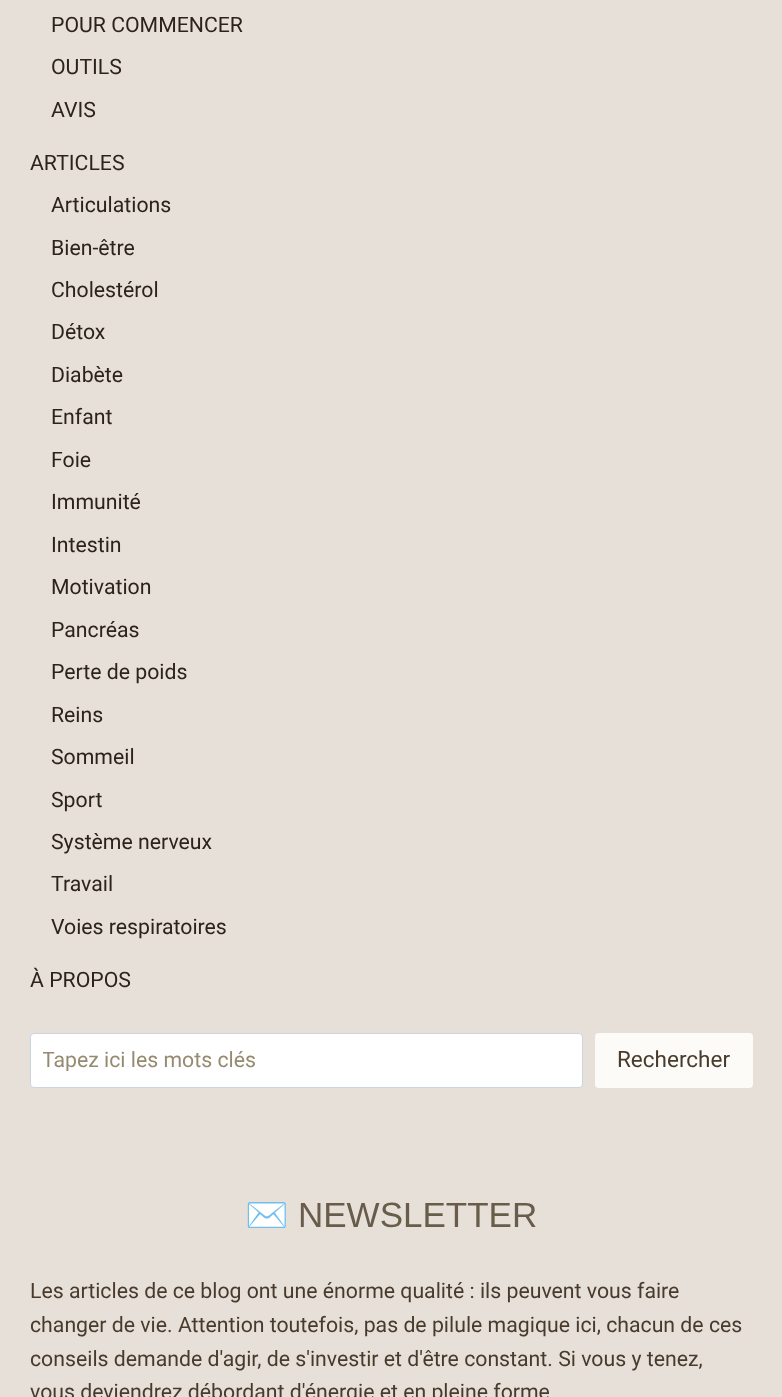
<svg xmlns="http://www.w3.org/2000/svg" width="782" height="1397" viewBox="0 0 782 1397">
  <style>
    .t1 { font: 21.25px Roboto; fill: #2c241a; }
    .t2 { font: 21.25px Roboto; fill: #968b71; }
    .t3 { font: 22.5px Roboto; fill: #483b2d; }
    .t4 { font: 35px Noto Color Emoji; fill: #685c4a; }
    .t5 { font: 35px Liberation Sans; fill: #685c4a; }
    .t6 { font: 21.25px Roboto; fill: #483b2d; }
  </style>
  <defs>
    <clipPath id="clip1"><rect x="43" y="1046" width="507" height="25"/></clipPath>
  </defs>
  <rect width="100%" height="100%" fill="#e7e0d9"/>
  <text x="51" y="32" class="t1">POUR COMMENCER</text>
  <text x="51" y="74" class="t1">OUTILS</text>
  <text x="51" y="117" class="t1">AVIS</text>
  <text x="30" y="170" class="t1">ARTICLES</text>
  <text x="51" y="212" class="t1">Articulations</text>
  <text x="51" y="255" class="t1">Bien-être</text>
  <text x="51" y="297" class="t1">Cholestérol</text>
  <text x="51" y="339" class="t1">Détox</text>
  <text x="51" y="382" class="t1">Diabète</text>
  <text x="51" y="424" class="t1">Enfant</text>
  <text x="51" y="467" class="t1">Foie</text>
  <text x="51" y="509" class="t1">Immunité</text>
  <text x="51" y="552" class="t1">Intestin</text>
  <text x="51" y="594" class="t1">Motivation</text>
  <text x="51" y="637" class="t1">Pancréas</text>
  <text x="51" y="679" class="t1">Perte de poids</text>
  <text x="51" y="722" class="t1">Reins</text>
  <text x="51" y="764" class="t1">Sommeil</text>
  <text x="51" y="807" class="t1">Sport</text>
  <text x="51" y="849" class="t1">Système nerveux</text>
  <text x="51" y="891" class="t1">Travail</text>
  <text x="51" y="934" class="t1">Voies respiratoires</text>
  <text x="30" y="987" class="t1">À PROPOS</text>
  <rect x="30.5" y="1033.5" width="552" height="54" rx="3.5" fill="#fff" stroke="#cbd5e0"/>
  <g clip-path="url(#clip1)">
    <text x="42" y="1067" class="t2">Tapez ici les mots clés</text>
  </g>
  <rect x="595" y="1033" width="158" height="55" rx="4" fill="#fcfbf7"/>
  <text x="617" y="1067" class="t3">Rechercher</text>
  <text x="245" y="1227" class="t4">✉️</text>
  <text x="298" y="1227" class="t5">NEWSLETTER</text>
  <text x="30" y="1298" class="t6">Les articles de ce blog ont une énorme qualité : ils peuvent vous faire</text>
  <text x="30" y="1332" class="t6">changer de vie. Attention toutefois, pas de pilule magique ici, chacun de ces</text>
  <text x="30" y="1366" class="t6">conseils demande d'agir, de s'investir et d'être constant. Si vous y tenez,</text>
  <text x="30" y="1399" class="t6">vous deviendrez débordant d'énergie et en pleine forme</text>
</svg>
